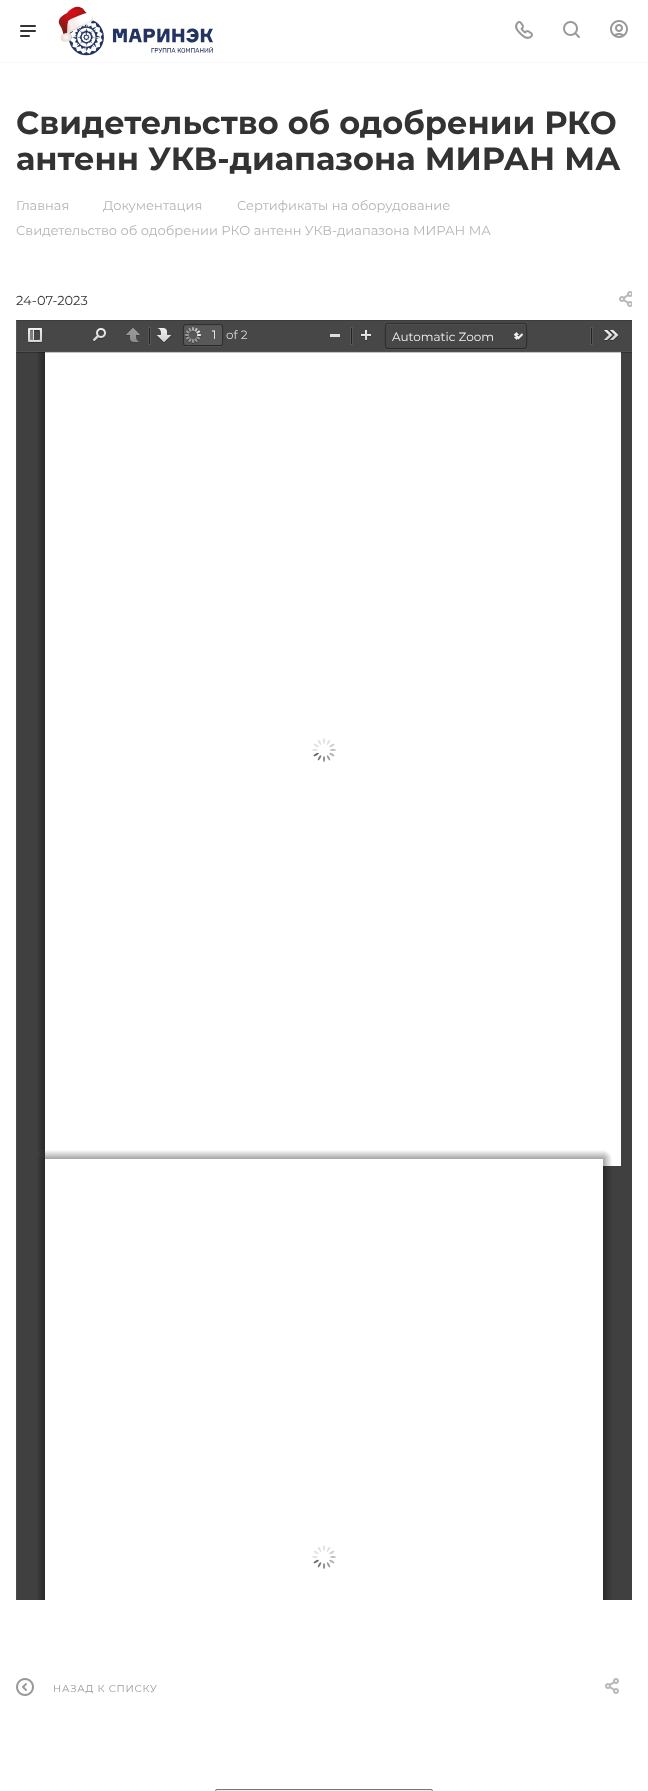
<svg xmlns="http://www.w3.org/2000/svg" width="648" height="1791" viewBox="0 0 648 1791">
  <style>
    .t1 { font: bold 32px Montserrat; fill: #333; }
    .t2 { font: 13px Montserrat; fill: #b6b5b5; }
    .t3 { font: 13px Montserrat; fill: #333; }
    .t4 { font: 12px Montserrat; fill: #f2f2f2; }
    .t5 { font: 12px Montserrat; fill: #d9d9d9; }
    .t6 { font: 10px Montserrat; letter-spacing: 0.75px; fill: #999; }
  </style>
  <rect width="100%" height="100%" fill="#fff"/>
  <rect x="0" y="62" width="648" height="1" fill="#f8f8f8"/>
  <image x="20" y="25" width="16" height="12" href="images/1.png"/>
  <image x="58" y="6" width="155" height="50" href="images/2.png"/>
  <image x="515" y="21" width="18" height="18" href="images/3.png"/>
  <image x="563" y="21" width="17" height="17" href="images/4.png"/>
  <image x="610" y="20" width="18" height="18" href="images/5.png"/>
  <text x="16" y="134" class="t1">Свидетельство об одобрении РКО</text>
  <text x="16" y="170" class="t1">антенн УКВ-диапазона МИРАН МА</text>
  <text x="16" y="210" class="t2">Главная</text>
  <text x="103" y="210" class="t2">Документация</text>
  <text x="237" y="210" class="t2">Сертификаты на оборудование</text>
  <text x="16" y="235" class="t2">Свидетельство об одобрении РКО антенн УКВ-диапазона МИРАН МА</text>
  <text x="16" y="305" class="t3">24-07-2023</text>
  <image x="619" y="291" width="13" height="16" href="images/6.png"/>
  <rect x="17" y="352" width="615" height="1248" fill="#404040"/>
  <rect x="16" y="352" width="1" height="1248" fill="#4a4a4a"/>
  <image x="37" y="352" width="8" height="804" href="images/15.png"/>
  <rect x="45" y="352" width="576" height="814" fill="#fff"/>
  <rect x="16" y="321" width="616" height="32" fill="#0000001a" filter="blur(0.5px)"/>
  <rect x="16" y="352" width="616" height="1" fill="#00000026"/>
  <rect x="17" y="321" width="615" height="30" fill="#474747"/>
  <rect x="16" y="320" width="1" height="32" fill="#565656"/>
  <rect x="16" y="351" width="616" height="1" fill="#505050"/>
  <rect x="16" y="351" width="1" height="1" fill="#5e5e5e"/>
  <rect x="16" y="320" width="616" height="1" fill="#3c3c3c"/>
  <rect x="16" y="320" width="1" height="1" fill="#4c4c4c"/>
  <image x="28" y="328" width="14" height="15" href="images/7.png"/>
  <image x="93" y="328" width="13" height="14" href="images/8.png"/>
  <image x="126" y="328" width="14" height="15" href="images/9.png"/>
  <rect x="148.5" y="327.5" width="2" height="17" fill="none" stroke="#565656"/>
  <rect x="149" y="328" width="1" height="16" fill="#242424"/>
  <image x="157" y="328" width="14" height="15" href="images/10.png"/>
  <path d="M183 344C183 348 187 347 191 347H215C219 347 223 348 223 344C223 345 222 346 221 346H185C184 346 183 345 183 344Z" fill="#505050"/>
  <rect x="184" y="325" width="38" height="20" rx="1" fill="#585858"/>
  <image x="185" y="327" width="16" height="17" href="images/11.png"/>
  <path d="M185 326H209C217 326 220 324.5 221.5 325.5C222 326 222 327 222 328.5C222 323.5 221.5 325 215 325H191C185.5 325 184 323.5 184 328C184 326.5 184.5 326 185 326ZM184 344V343.5Z" fill="#0000000d" fill-rule="evenodd"/>
  <path d="M184 325L185 324.5H221L222 325" fill="none" stroke="#303030"/>
  <path d="M222 325C223 325.5 223 344.5 222 345" fill="none" stroke="#2c2c2c"/>
  <path d="M222 345L221 345.5H185L184 345" fill="none" stroke="#292929"/>
  <path d="M184 345C183 344.5 183 325.5 184 325" fill="none" stroke="#2c2c2c"/>
  <text x="212" y="339" class="t4">1</text>
  <text x="226" y="339" class="t5">of 2</text>
  <rect x="330" y="334" width="10" height="3" fill="#dedede"/>
  <rect x="350.5" y="327.5" width="2" height="17" fill="none" stroke="#565656"/>
  <rect x="351" y="328" width="1" height="16" fill="#242424"/>
  <image x="361" y="330" width="10" height="11" href="images/12.png"/>
  <path d="M385 347C385 348 385 349 386 350H525L527 349V347C527 348 526 349 525 349H387C386 349 385 348 385 347Z" fill="#505050"/>
  <image x="514" y="332" width="5" height="8" href="images/13.png"/>
  <path d="M387 325H525C526 325 526 325 526 326C526 325 526 324 525 324H387C386 324 386 325 386 326C386 325 386 325 387 325Z" fill="#505050"/>
  <path d="M386 324L387 323.5H525L526 324" fill="none" stroke="#303030"/>
  <path d="M526 324C527 325 527 347 526 348" fill="none" stroke="#2c2c2c"/>
  <path d="M526 348L525 348.5H387L386 348" fill="none" stroke="#292929"/>
  <path d="M386 348C385 347 385 325 386 324" fill="none" stroke="#2c2c2c"/>
  <path d="M514.5 334L518.5 338L522.5 334" fill="none" stroke="#f2f2f2" stroke-width="2"/>
  <text x="392" y="341" class="t4">Automatic Zoom</text>
  <rect x="590.5" y="327.5" width="2" height="17" fill="none" stroke="#565656"/>
  <rect x="591" y="328" width="1" height="16" fill="#242424"/>
  <image x="604" y="330" width="15" height="11" href="images/14.png"/>
  <image x="312" y="738" width="24" height="24" href="images/16.png"/>
  <rect x="45" y="1166" width="558" height="434" fill="#fff"/>
  <image x="37" y="1150" width="575" height="450" href="images/17.png"/>
  <image x="312" y="1545" width="24" height="24" href="images/16.png"/>
  <image x="16" y="1678" width="18" height="18" href="images/18.png"/>
  <text x="53" y="1692" class="t6">НАЗАД К СПИСКУ</text>
  <image x="605" y="1678" width="14" height="16" href="images/19.png"/>
  <rect x="215.5" y="1789.5" width="217" height="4" rx="1.5" fill="#efefef" stroke="#767676"/>
</svg>
